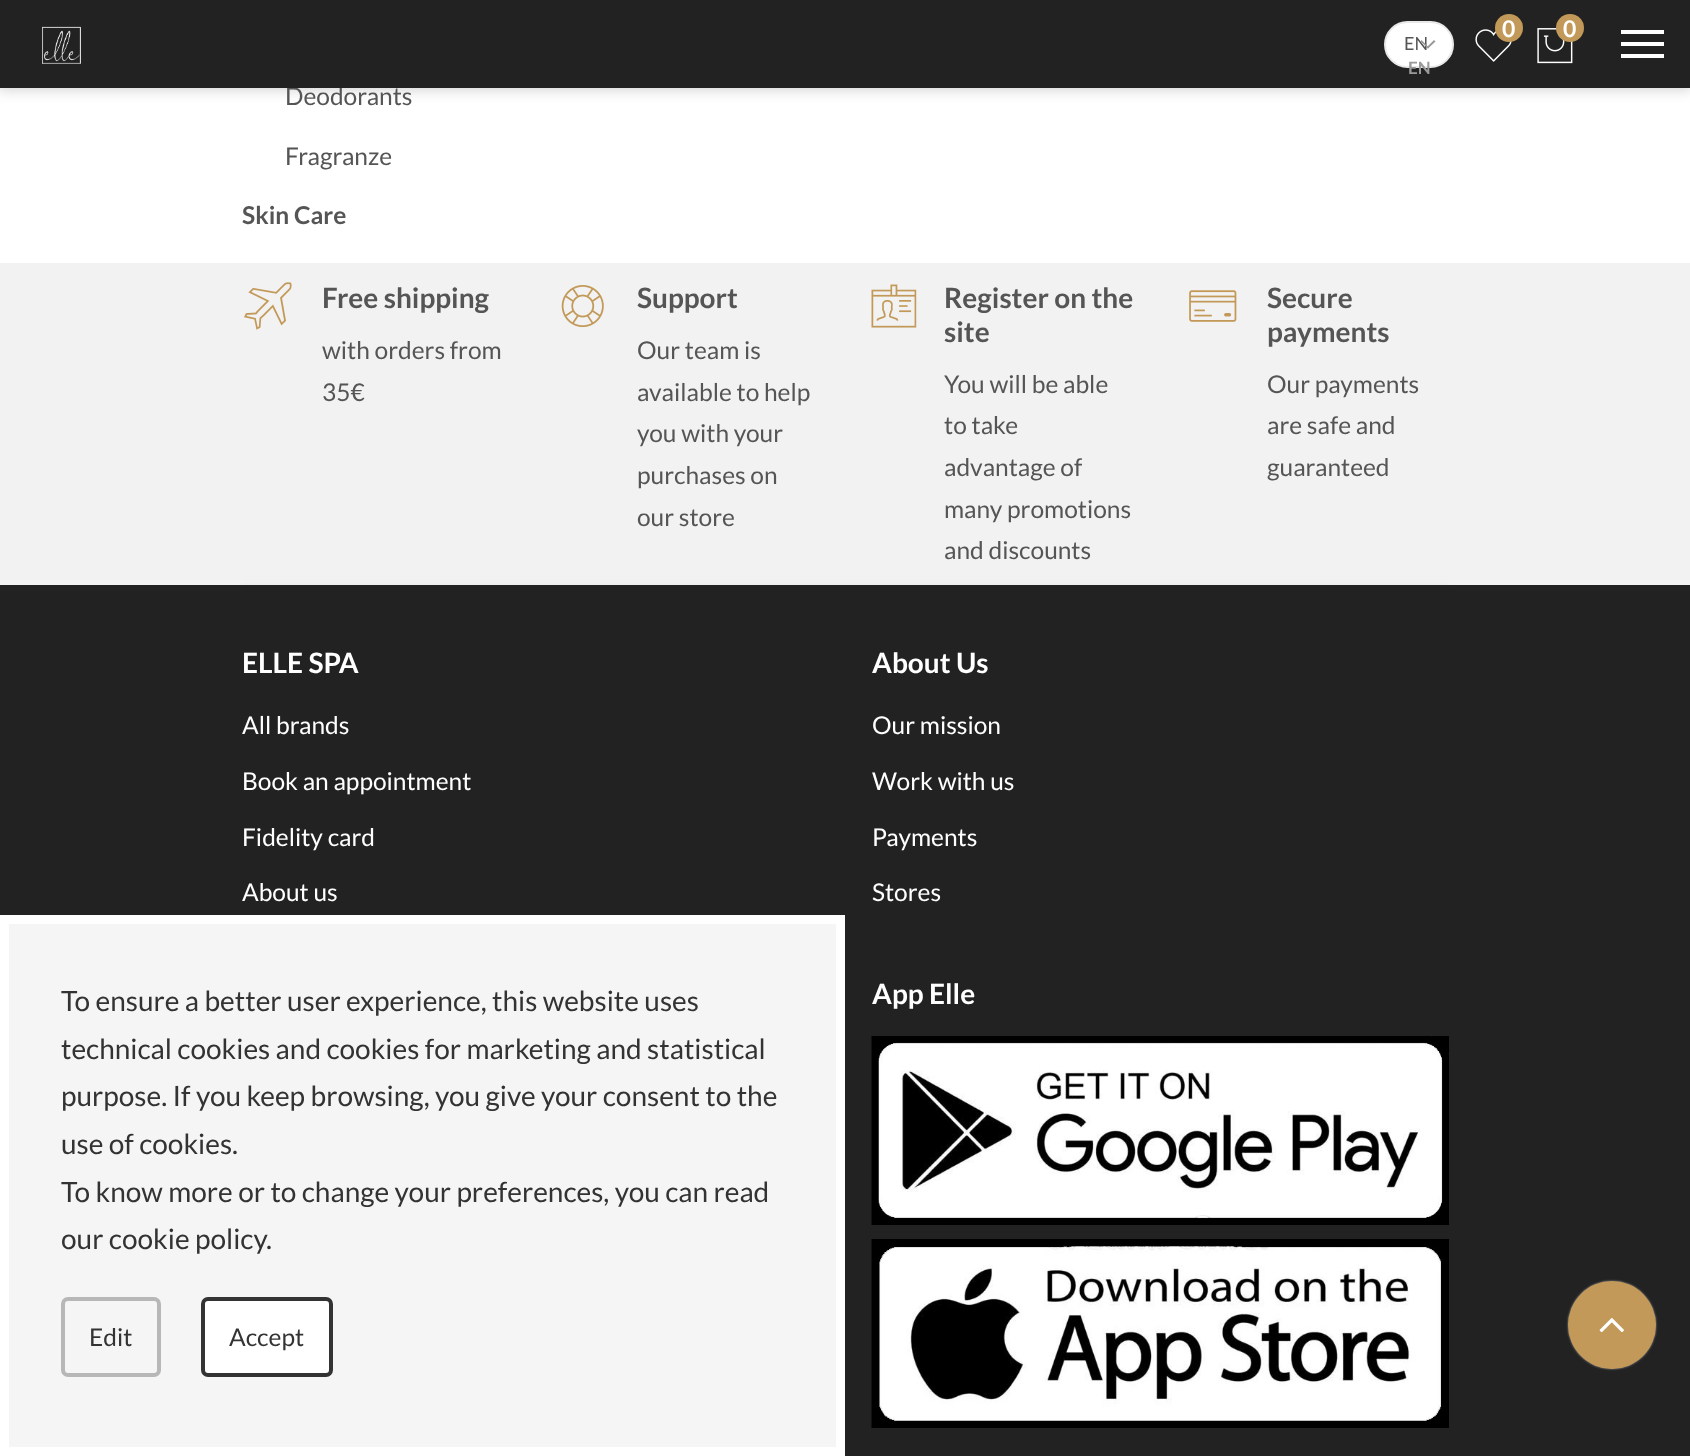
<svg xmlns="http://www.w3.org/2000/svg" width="1690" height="1456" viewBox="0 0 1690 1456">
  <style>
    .t1 { font: 24.5px Lato; fill: #555; }
    .t2 { font: 18px Lato; fill: #555; }
    .t3 { font: bold 17px Lato; fill: #999; }
    .t4 { font: bold 23px Lato; fill: #fff; }
    .t5 { font: bold 24.5px Lato; fill: #555; }
    .t6 { font: bold 28px Lato; fill: #555; }
    .t7 { font: bold 28px Lato; fill: #fff; }
    .t8 { font: 24.5px Lato; fill: #fff; }
    .t9 { font: 28px Lato; fill: #333; }
    .t10 { font: 24.5px Lato; fill: #333; }
  </style>
  <rect width="100%" height="100%" fill="#fff"/>
  <rect x="-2" y="-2" width="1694" height="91" fill="#00000033" filter="blur(7px)"/>
  <text x="285" y="105" class="t1">Deodorants</text>
  <rect x="0" y="0" width="1690" height="88" fill="#222"/>
  <image x="42" y="26" width="39" height="38" href="images/1.png"/>
  <rect x="1385" y="22" width="68" height="45" rx="22.5" fill="#fff" stroke="#e8e8e8" stroke-width="2"/>
  <text x="1404" y="50" class="t2">EN</text>
  <path d="M1434 40L1435.5 41.5L1428 48.5L1426.5 47.5Z" fill="#999"/>
  <path d="M1421.5 40L1429 47.5L1428 48.5L1420.5 41.5Z" fill="#999"/>
  <text x="1408" y="74" class="t3">EN</text>
  <image x="1475" y="29" width="37" height="33" href="images/2.png"/>
  <circle cx="1509" cy="28" r="14" fill="#c29958"/>
  <text x="1502" y="37" class="t4">0</text>
  <image x="1537" y="28" width="36" height="36" href="images/3.png"/>
  <circle cx="1570" cy="28" r="14" fill="#c29958"/>
  <text x="1563" y="37" class="t4">0</text>
  <rect x="1621" y="30" width="43" height="4" fill="#fff"/>
  <rect x="1621" y="42" width="43" height="4" fill="#fff"/>
  <rect x="1621" y="54" width="43" height="4" fill="#fff"/>
  <text x="285" y="165" class="t1">Fragranze</text>
  <text x="242" y="224" class="t5">Skin Care</text>
  <rect x="0" y="263" width="1690" height="322" fill="#f2f2f2"/>
  <rect x="242" y="583" width="1207" height="2" fill="#efefef"/>
  <image x="244" y="282" width="48" height="48" href="images/4.png"/>
  <text x="322" y="308" class="t6">Free shipping</text>
  <text x="322" y="359" class="t1">with orders from</text>
  <text x="322" y="401" class="t1">35€</text>
  <image x="561" y="285" width="43" height="43" href="images/5.png"/>
  <text x="637" y="308" class="t6">Support</text>
  <text x="637" y="359" class="t1">Our team is</text>
  <text x="637" y="401" class="t1">available to help</text>
  <text x="637" y="442" class="t1">you with your</text>
  <text x="637" y="484" class="t1">purchases on</text>
  <text x="637" y="526" class="t1">our store</text>
  <image x="871" y="284" width="46" height="44" href="images/6.png"/>
  <text x="944" y="308" class="t6">Register on the</text>
  <text x="944" y="342" class="t6">site</text>
  <text x="944" y="393" class="t1">You will be able</text>
  <text x="944" y="434" class="t1">to take</text>
  <text x="944" y="476" class="t1">advantage of</text>
  <text x="944" y="518" class="t1">many promotions</text>
  <text x="944" y="559" class="t1">and discounts</text>
  <image x="1189" y="290" width="48" height="32" href="images/7.png"/>
  <text x="1267" y="308" class="t6">Secure</text>
  <text x="1267" y="342" class="t6">payments</text>
  <text x="1267" y="393" class="t1">Our payments</text>
  <text x="1267" y="434" class="t1">are safe and</text>
  <text x="1267" y="476" class="t1">guaranteed</text>
  <rect x="0" y="585" width="1690" height="871" fill="#222"/>
  <text x="242" y="673" class="t7">ELLE SPA</text>
  <text x="242" y="734" class="t8">All brands</text>
  <text x="242" y="790" class="t8">Book an appointment</text>
  <text x="242" y="846" class="t8">Fidelity card</text>
  <text x="242" y="901" class="t8">About us</text>
  <text x="872" y="673" class="t7">About Us</text>
  <text x="872" y="734" class="t8">Our mission</text>
  <text x="872" y="790" class="t8">Work with us</text>
  <text x="872" y="846" class="t8">Payments</text>
  <text x="872" y="901" class="t8">Stores</text>
  <text x="872" y="1004" class="t7">App Elle</text>
  <image x="871" y="1036" width="578" height="189" href="images/8.png"/>
  <image x="871" y="1239" width="578" height="189" href="images/9.png"/>
  <rect x="4.5" y="919.5" width="836" height="532" fill="#f5f5f5" stroke="#fff" stroke-width="9"/>
  <text x="61" y="1011" class="t9">To ensure a better user experience, this website uses</text>
  <text x="61" y="1059" class="t9">technical cookies and cookies for marketing and statistical</text>
  <text x="61" y="1106" class="t9">purpose. If you keep browsing, you give your consent to the</text>
  <text x="61" y="1154" class="t9">use of cookies.</text>
  <text x="61" y="1202" class="t9">To know more or to change your preferences, you can read</text>
  <text x="61" y="1249" class="t9">our cookie policy.</text>
  <rect x="63" y="1299" width="96" height="76" rx="5" fill="none" stroke="#b7b7b7" stroke-width="4"/>
  <text x="89" y="1346" class="t10">Edit</text>
  <rect x="203" y="1299" width="128" height="76" rx="5" fill="#fff" stroke="#333" stroke-width="4"/>
  <text x="229" y="1346" class="t10">Accept</text>
  <rect x="1568" y="1281" width="88" height="88" rx="44" fill="#ffffff80" filter="blur(1px)"/>
  <circle cx="1612" cy="1325" r="44" fill="#c29958"/>
  <image x="1599" y="1318" width="25" height="15" href="images/10.png"/>
</svg>
